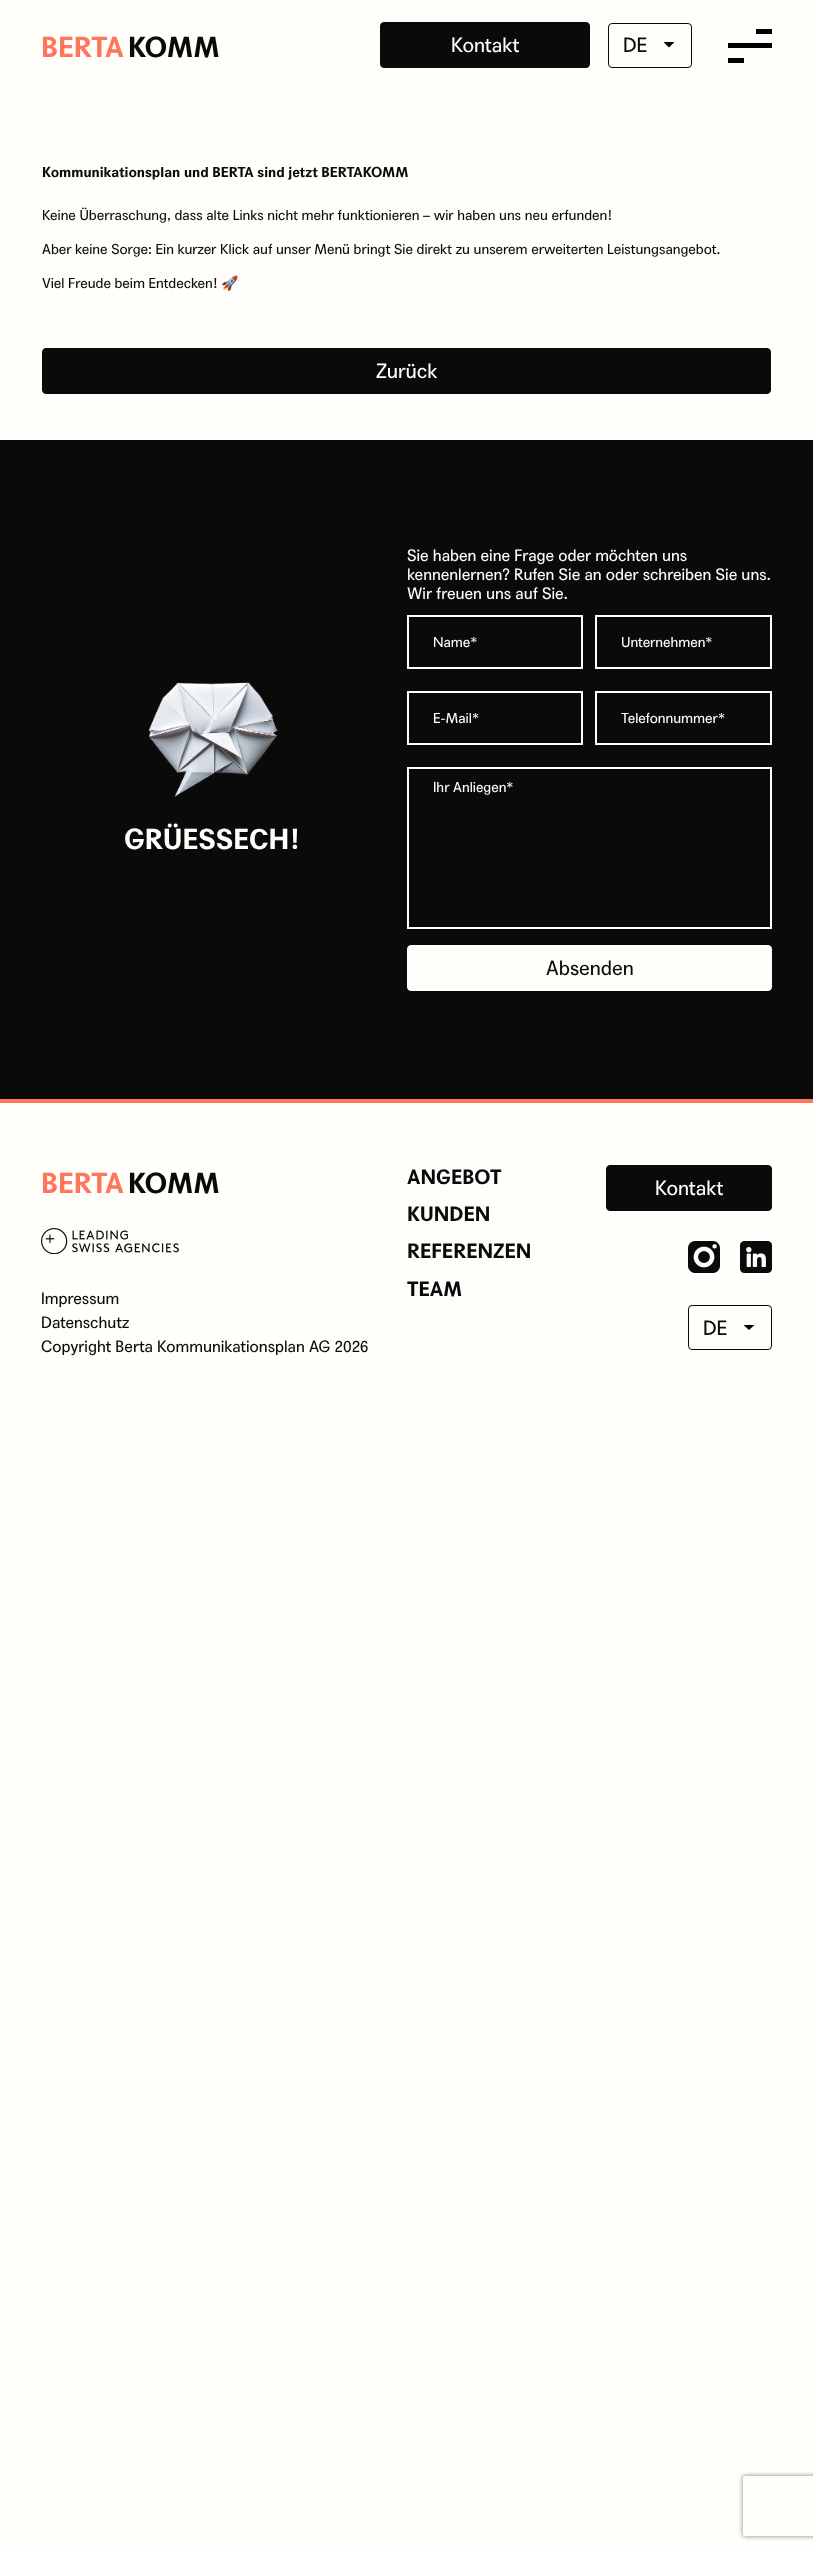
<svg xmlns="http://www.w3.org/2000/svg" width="813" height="2550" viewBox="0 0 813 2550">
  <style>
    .t1 { font: bold 28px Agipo; fill: #ff775a; }
    .t2 { font: bold 28px Agipo; fill: #0b0a0a; }
    .t3 { font: 20px Agipo; fill: #fffefa; }
    .t4 { font: 20px Agipo; fill: #0b0a0a; }
    .t5 { font: bold 14px Agipo; fill: #0b0a0a; }
    .t6 { font: 14px Agipo; fill: #0b0a0a; }
    .t7 { font: 14px Noto Color Emoji; fill: #0b0a0a; }
    .t8 { font: bold 28px Agipo; fill: #fffefa; }
    .t9 { font: 16px Agipo; fill: #fffefa; }
    .t10 { font: 14px Agipo; fill: #fffefa; }
    .t11 { font: 16px Agipo; fill: #0b0a0a; }
    .t12 { font: bold 20px Agipo; fill: #0b0a0a; }
  </style>
  <defs>
    <clipPath id="clip1"><path d="M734 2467H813V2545H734ZM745 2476H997C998 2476 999 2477 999 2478V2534C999 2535 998 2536 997 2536H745C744 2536 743 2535 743 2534V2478C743 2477 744 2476 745 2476Z" clip-rule="evenodd"/></clipPath>
  </defs>
  <rect width="100%" height="100%" fill="#fffefa"/>
  <text x="41" y="57" class="t1">BERTA</text>
  <text x="128" y="57" class="t2">KOMM</text>
  <rect x="380.5" y="22.5" width="209" height="45" rx="3.5" fill="#0b0a0a" stroke="#0b0a0a"/>
  <text x="451" y="52" class="t3">Kontakt</text>
  <rect x="608.5" y="23.5" width="83" height="44" rx="3.5" fill="none" stroke="#0b0a0a"/>
  <text x="623" y="52" class="t4">DE</text>
  <path d="M669 42H674.5L669 47.5L663.5 42Z" fill="#000"/>
  <rect x="756" y="29" width="16" height="5" fill="#000"/>
  <rect x="728" y="43" width="44" height="5" fill="#000"/>
  <rect x="728" y="58" width="16" height="5" fill="#000"/>
  <text x="42" y="177" class="t5">Kommunikationsplan und BERTA sind jetzt BERTAKOMM</text>
  <text x="42" y="220" class="t6">Keine Überraschung, dass alte Links nicht mehr funktionieren – wir haben uns neu erfunden!</text>
  <text x="42" y="254" class="t6">Aber keine Sorge: Ein kurzer Klick auf unser Menü bringt Sie direkt zu unserem erweiterten Leistungsangebot.</text>
  <text x="42" y="288" class="t6">Viel Freude beim Entdecken!</text>
  <text x="221" y="288" class="t7">🚀</text>
  <rect x="42.5" y="348.5" width="728" height="45" rx="3.5" fill="#0b0a0a" stroke="#0b0a0a"/>
  <text x="376" y="378" class="t3">Zurück</text>
  <rect x="0" y="440" width="813" height="659" fill="#0b0a0a"/>
  <image x="148" y="682" width="130" height="115" href="images/1.png"/>
  <text x="124" y="849" class="t8">GRÜESSECH!</text>
  <text x="407" y="561" class="t9">Sie haben eine Frage oder möchten uns</text>
  <text x="407" y="580" class="t9">kennenlernen? Rufen Sie an oder schreiben Sie uns.</text>
  <text x="407" y="599" class="t9">Wir freuen uns auf Sie.</text>
  <rect x="408" y="616" width="174" height="52" fill="none" stroke="#fffefa" stroke-width="2"/>
  <text x="433" y="647" class="t10">Name*</text>
  <rect x="596" y="616" width="175" height="52" fill="none" stroke="#fffefa" stroke-width="2"/>
  <text x="621" y="647" class="t10">Unternehmen*</text>
  <rect x="408" y="692" width="174" height="52" fill="none" stroke="#fffefa" stroke-width="2"/>
  <text x="433" y="723" class="t10">E-Mail*</text>
  <rect x="596" y="692" width="175" height="52" fill="none" stroke="#fffefa" stroke-width="2"/>
  <text x="621" y="723" class="t10">Telefonnummer*</text>
  <rect x="408" y="768" width="363" height="160" fill="none" stroke="#fffefa" stroke-width="2"/>
  <text x="433" y="792" class="t10">Ihr Anliegen*</text>
  <rect x="407.5" y="945.5" width="364" height="45" rx="3.5" fill="#fffefa" stroke="#fffefa"/>
  <text x="546" y="975" class="t4">Absenden</text>
  <g clip-path="url(#clip1)">
    <rect x="743" y="2476" width="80" height="60" rx="2" fill="#808080" filter="blur(2.5px)"/>
  </g>
  <rect x="0" y="1099" width="813" height="4" fill="#ff775a"/>
  <text x="41" y="1193" class="t1">BERTA</text>
  <text x="128" y="1193" class="t2">KOMM</text>
  <image x="41" y="1228" width="138" height="26" href="images/2.png"/>
  <text x="41" y="1304" class="t11">Impressum</text>
  <text x="41" y="1328" class="t11">Datenschutz</text>
  <text x="41" y="1352" class="t11">Copyright Berta Kommunikationsplan AG 2026</text>
  <text x="407" y="1184" class="t12">ANGEBOT</text>
  <text x="407" y="1221" class="t12">KUNDEN</text>
  <text x="407" y="1258" class="t12">REFERENZEN</text>
  <text x="407" y="1296" class="t12">TEAM</text>
  <rect x="606.5" y="1165.5" width="165" height="45" rx="3.5" fill="#0b0a0a" stroke="#0b0a0a"/>
  <text x="655" y="1195" class="t3">Kontakt</text>
  <image x="688" y="1241" width="32" height="32" href="images/3.png"/>
  <image x="740" y="1241" width="32" height="32" href="images/4.png"/>
  <rect x="688.5" y="1305.5" width="83" height="44" rx="3.5" fill="none" stroke="#0b0a0a"/>
  <text x="703" y="1335" class="t4">DE</text>
  <path d="M749 1325H754.5L749 1330L743.5 1325Z" fill="#000"/>
</svg>
